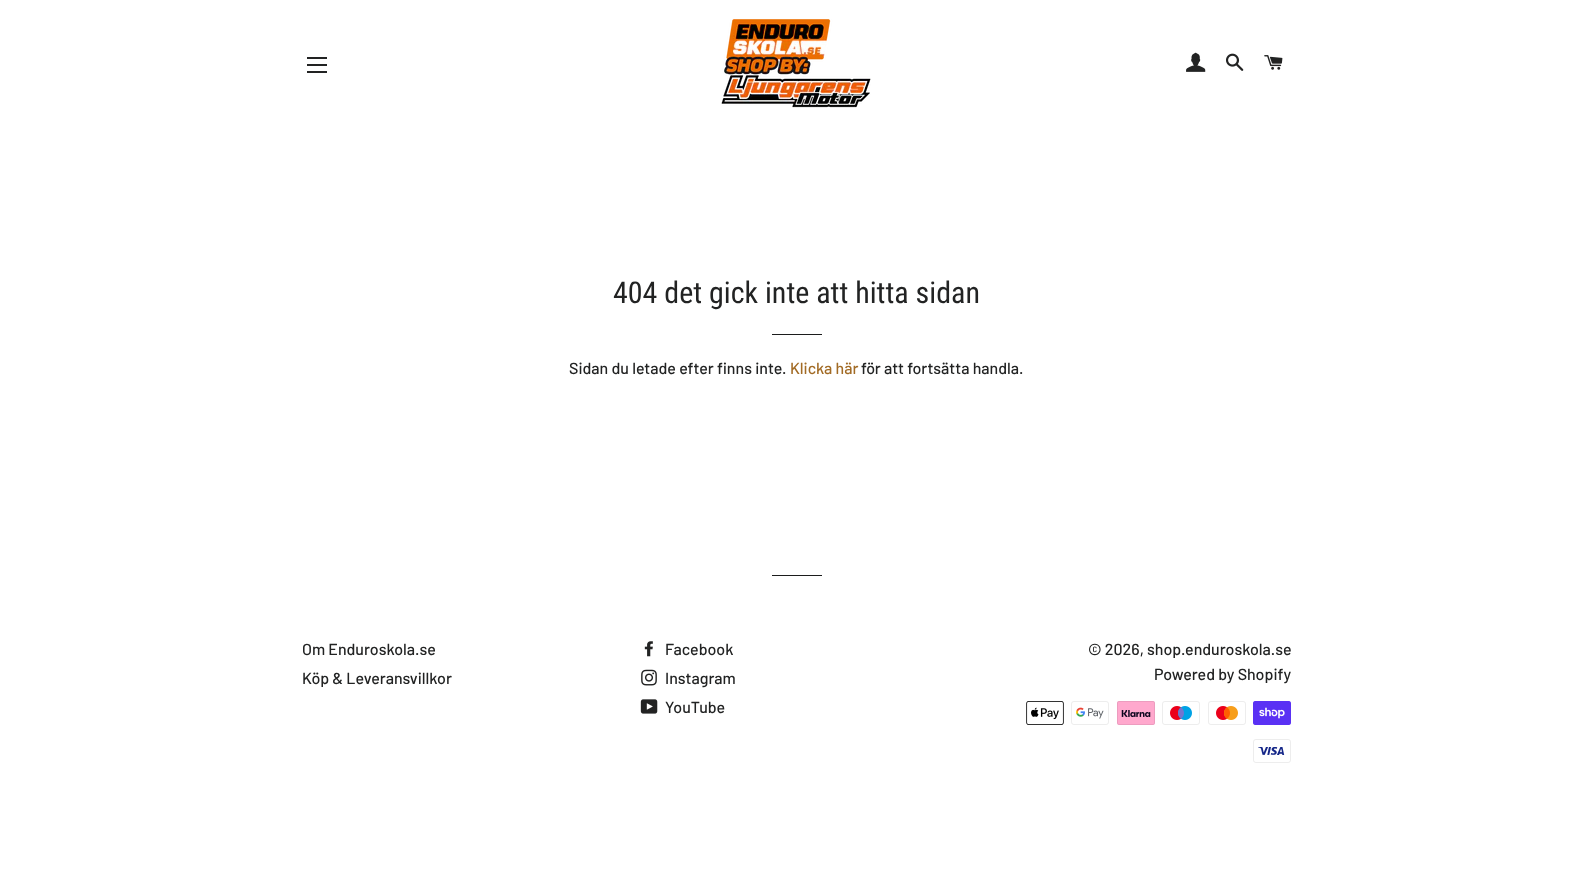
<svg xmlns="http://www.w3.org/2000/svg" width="1593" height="874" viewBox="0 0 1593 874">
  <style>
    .t1 { font: 30px Roboto Condensed; fill: #222323; }
    .t2 { font: 500 16px Barlow; fill: #222323; }
    .t3 { font: 500 16px Barlow; fill: #a26b25; }
  </style>
  <rect width="100%" height="100%" fill="#fff"/>
  <rect x="307" y="57" width="20" height="2" fill="#222323"/>
  <rect x="307" y="64" width="20" height="2" fill="#222323"/>
  <rect x="307" y="71" width="20" height="2" fill="#222323"/>
  <image x="721" y="19" width="150" height="89" href="images/1.png"/>
  <image x="1186" y="52" width="20" height="20" href="images/2.png"/>
  <image x="1226" y="53" width="18" height="18" href="images/3.png"/>
  <image x="1264" y="55" width="19" height="15" href="images/4.png"/>
  <text x="613" y="303" class="t1">404 det gick inte att hitta sidan</text>
  <rect x="772" y="334" width="50" height="1" fill="#1c1d1d"/>
  <text x="569" y="374" class="t2">Sidan du letade efter finns inte.</text>
  <text x="790" y="374" class="t3">Klicka här</text>
  <text x="861" y="374" class="t2">för att fortsätta handla.</text>
  <rect x="772" y="575" width="50" height="1" fill="#1c1d1d"/>
  <text x="302" y="655" class="t2">Om Enduroskola.se</text>
  <text x="302" y="684" class="t2">Köp &amp; Leveransvillkor</text>
  <image x="644" y="641" width="9" height="16" href="images/5.png"/>
  <text x="665" y="655" class="t2">Facebook</text>
  <image x="641" y="669" width="16" height="17" href="images/6.png"/>
  <text x="665" y="684" class="t2">Instagram</text>
  <image x="640" y="699" width="18" height="15" href="images/7.png"/>
  <text x="665" y="713" class="t2">YouTube</text>
  <text x="1088" y="655" class="t2">© 2026, shop.enduroskola.se</text>
  <text x="1154" y="680" class="t2">Powered by Shopify</text>
  <image x="1026" y="701" width="38" height="24" href="images/8.png"/>
  <image x="1071" y="701" width="38" height="24" href="images/9.png"/>
  <image x="1117" y="701" width="38" height="24" href="images/10.png"/>
  <image x="1162" y="701" width="38" height="24" href="images/11.png"/>
  <image x="1208" y="701" width="38" height="24" href="images/12.png"/>
  <image x="1253" y="701" width="38" height="24" href="images/13.png"/>
  <image x="1253" y="739" width="38" height="24" href="images/14.png"/>
</svg>
